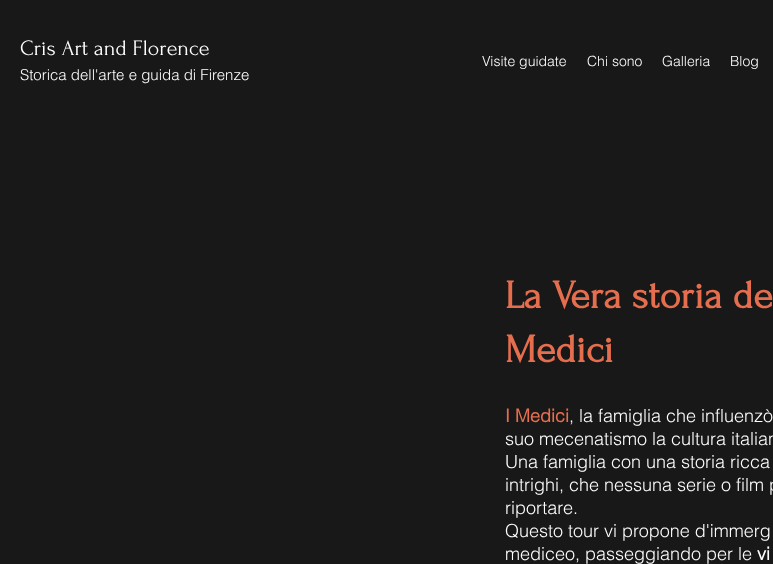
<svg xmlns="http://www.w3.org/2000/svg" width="773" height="564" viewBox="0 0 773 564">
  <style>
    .t1 { font: 22px Forum; fill: #fff; }
    .t2 { font: 300 15px helvetica; fill: #fff; }
    .t3 { font: 300 14px helvetica; fill: #fff; }
    .t4 { font: bold 40px Forum; fill: #e56e4e; }
    .t5 { font: bold 18px helvetica; fill: #e56e4e; }
    .t6 { font: 300 18px helvetica; fill: #fff; }
    .t7 { font: bold 18px helvetica; fill: #fff; }
  </style>
  <rect width="100%" height="100%" fill="#181818"/>
  <text x="20" y="55" class="t1">Cris Art and Florence</text>
  <text x="20" y="80" class="t2">Storica dell'arte e guida di Firenze</text>
  <text x="482" y="66" class="t3">Visite guidate</text>
  <text x="587" y="66" class="t3">Chi sono</text>
  <text x="662" y="66" class="t3">Galleria</text>
  <text x="730" y="66" class="t3">Blog</text>
  <text x="505" y="308" class="t4">La Vera storia de</text>
  <text x="505" y="362" class="t4">Medici</text>
  <text x="505" y="422" class="t5">I Medici</text>
  <text x="569" y="422" class="t6">, la famiglia che influenzò</text>
  <text x="505" y="445" class="t6">suo mecenatismo la cultura italian</text>
  <text x="505" y="468" class="t6">Una famiglia con una storia ricca</text>
  <text x="505" y="491" class="t6">intrighi, che nessuna serie o film p</text>
  <text x="505" y="514" class="t6">riportare.</text>
  <text x="505" y="537" class="t6">Questo tour vi propone d'immerg</text>
  <text x="505" y="560" class="t6">mediceo, passeggiando per le</text>
  <text x="757" y="560" class="t7">vi</text>
</svg>
